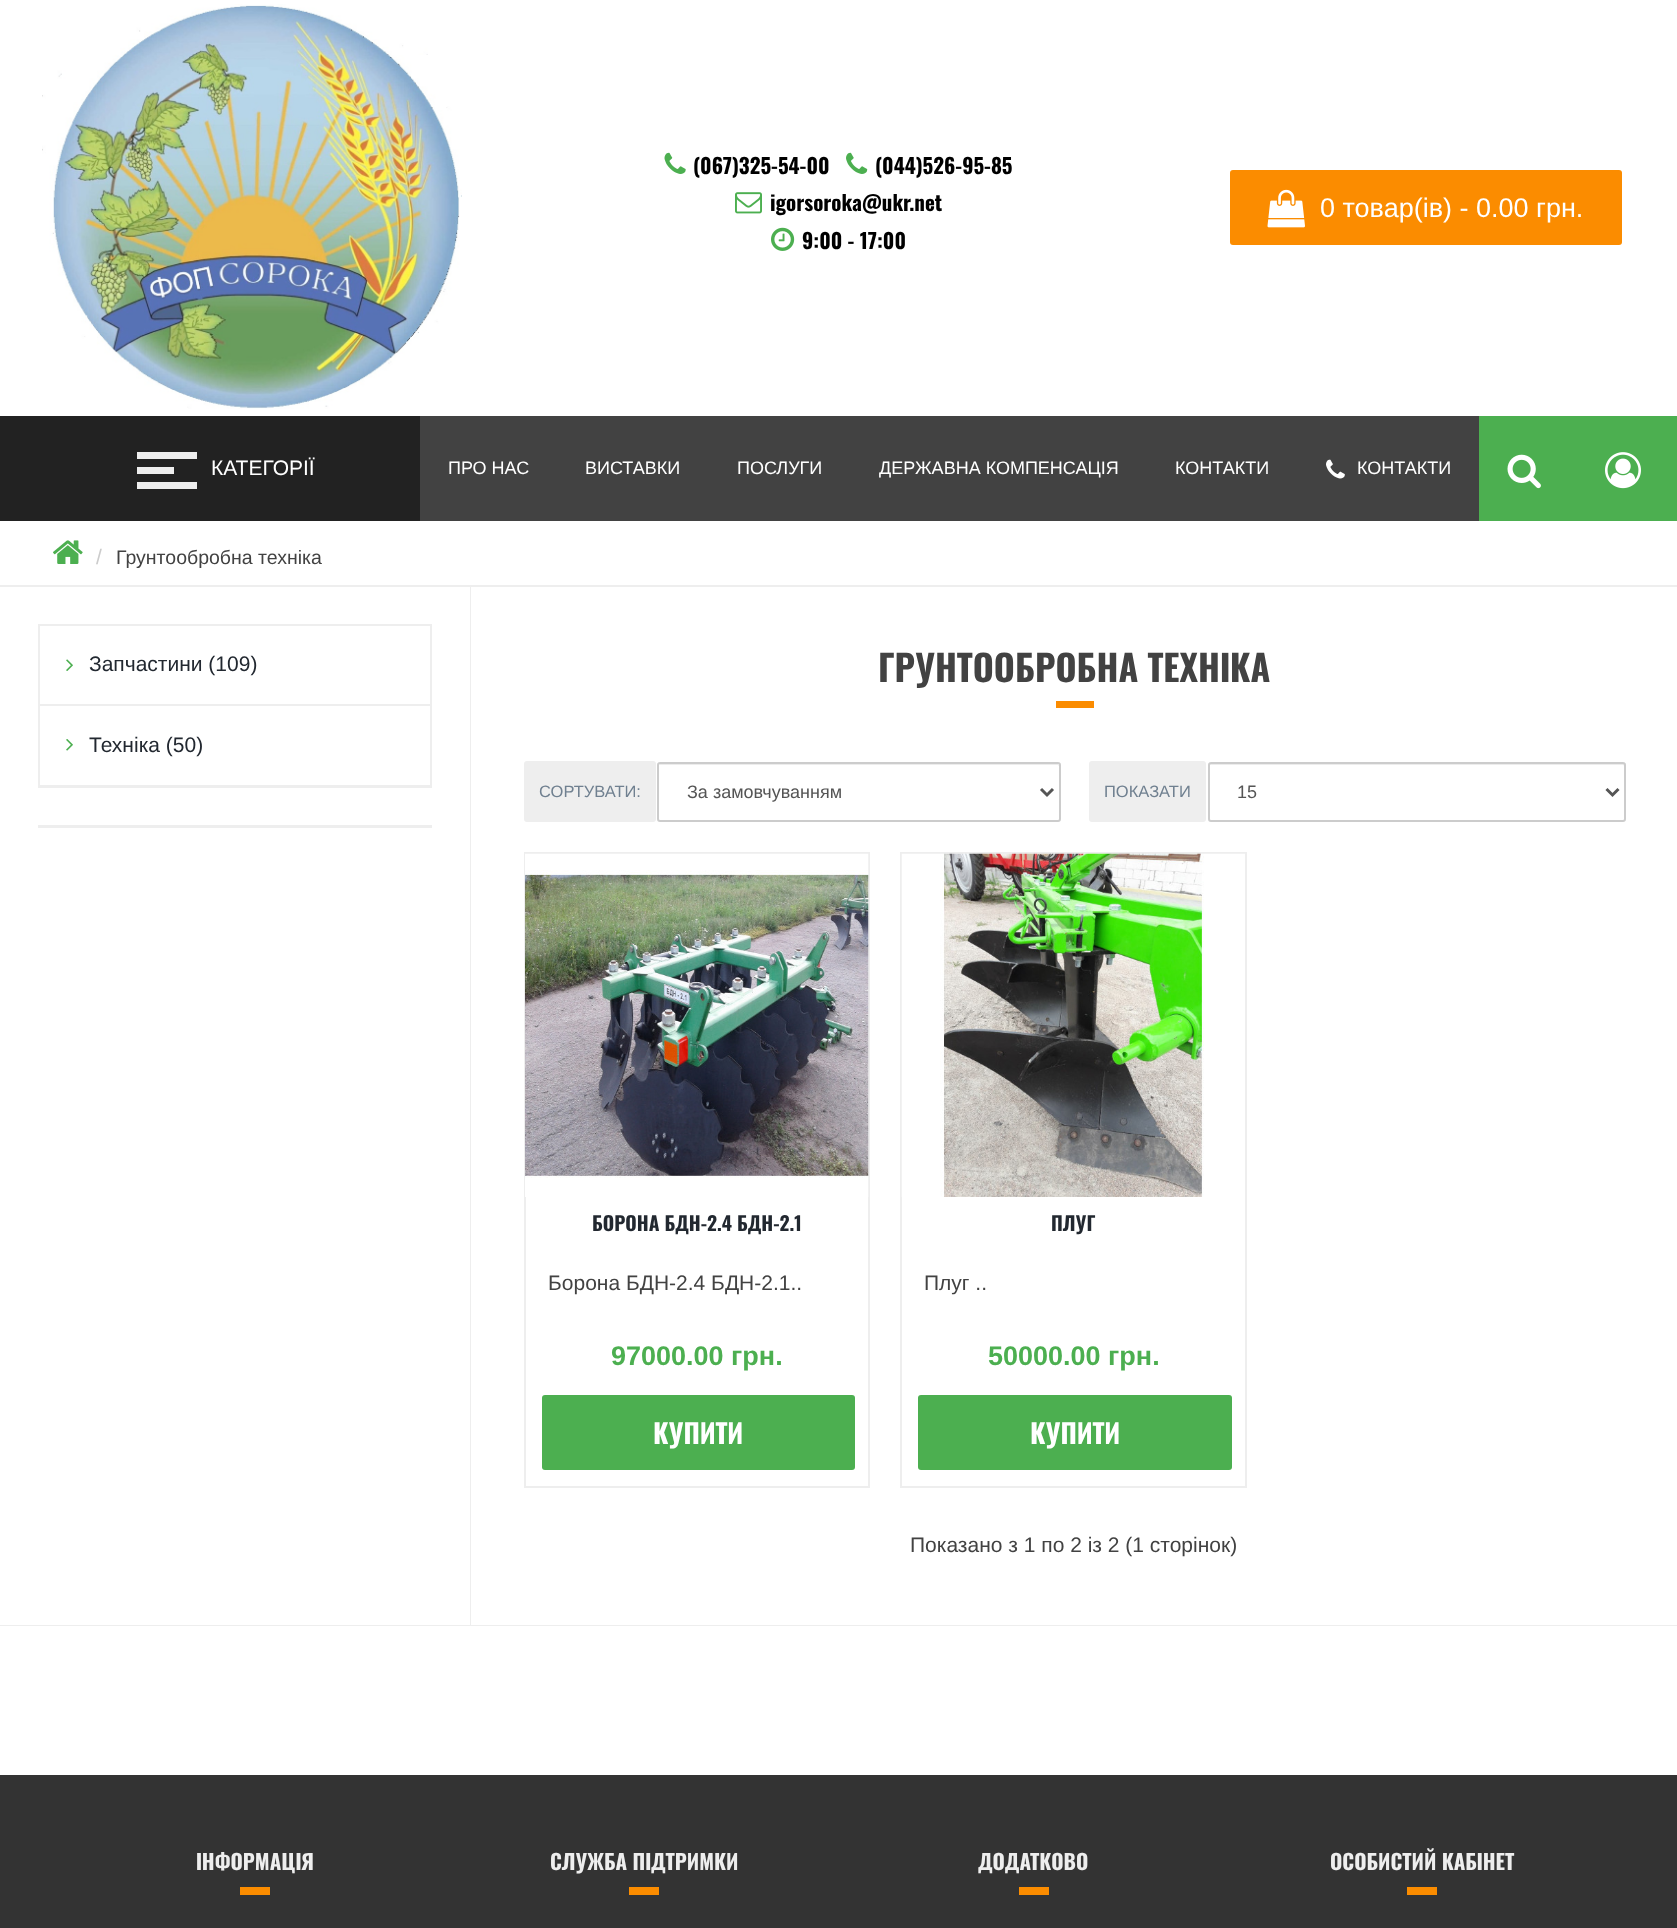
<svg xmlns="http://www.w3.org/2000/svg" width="1677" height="1928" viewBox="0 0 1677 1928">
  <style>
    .t1 { font: bold 21px Oswald; fill: #000; }
    .t2 { font: 27px Liberation Sans; fill: #fff; }
    .t3 { font: 21px Liberation Sans; fill: #fff; }
    .t4 { font: 18px Liberation Sans; fill: #fff; }
    .t5 { font: 21px Liberation Sans; fill: #ccc; }
    .t6 { font: 19.5px Liberation Sans; fill: #424242; }
    .t7 { font: 21px Liberation Sans; fill: #222830; }
    .t8 { font: bold 36px Oswald; fill: #424242; }
    .t9 { font: 16.5px Liberation Sans; fill: #708090; }
    .t10 { font: 18px Liberation Sans; fill: #555; }
    .t11 { font: bold 19.5px Oswald; fill: #222830; }
    .t12 { font: 21px Liberation Sans; fill: #424242; }
    .t13 { font: bold 27px Liberation Sans; fill: #4caf50; }
    .t14 { font: bold 27px Oswald; fill: #fff; }
    .t15 { font: bold 21px Oswald; fill: #eee; }
  </style>
  <rect width="100%" height="100%" fill="#fff"/>
  <image x="42" y="4" width="420" height="405" href="images/1.png"/>
  <image x="664" y="152" width="22" height="22" href="images/2.png"/>
  <text x="693" y="174" class="t1">(067)325-54-00</text>
  <image x="846" y="152" width="22" height="22" href="images/3.png"/>
  <text x="875" y="174" class="t1">(044)526-95-85</text>
  <image x="735" y="192" width="27" height="22" href="images/4.png"/>
  <text x="770" y="211" class="t1">igorsoroka@ukr.net</text>
  <image x="771" y="227" width="24" height="24" href="images/5.png"/>
  <text x="802" y="249" class="t1">9:00 - 17:00</text>
  <rect x="1230" y="170" width="392" height="75" rx="3" fill="#fb8c00"/>
  <image x="1267" y="189" width="38" height="39" href="images/6.png"/>
  <text x="1320" y="217" class="t2">0 товар(ів) - 0.00 грн.</text>
  <rect x="420" y="416" width="1059" height="105" fill="#424242"/>
  <rect x="0" y="416" width="420" height="105" fill="#222"/>
  <rect x="137" y="467" width="37" height="7" fill="#eee"/>
  <rect x="137" y="452" width="60" height="7" fill="#eee"/>
  <rect x="137" y="482" width="60" height="7" fill="#eee"/>
  <text x="211" y="475" class="t3">КАТЕГОРІЇ</text>
  <rect x="1479" y="416" width="198" height="105" fill="#4caf50"/>
  <image x="1507" y="454" width="34" height="35" href="images/7.png"/>
  <text x="448" y="474" class="t4">ПРО НАС</text>
  <text x="585" y="474" class="t4">ВИСТАВКИ</text>
  <text x="737" y="474" class="t4">ПОСЛУГИ</text>
  <text x="879" y="474" class="t4">ДЕРЖАВНА КОМПЕНСАЦІЯ</text>
  <text x="1175" y="474" class="t4">КОНТАКТИ</text>
  <image x="1326" y="459" width="19" height="20" href="images/8.png"/>
  <text x="1357" y="474" class="t4">КОНТАКТИ</text>
  <image x="1605" y="452" width="36" height="37" href="images/9.png"/>
  <image x="53" y="540" width="30" height="24" href="images/10.png"/>
  <text x="96" y="564" class="t5">/</text>
  <text x="116" y="564" class="t6">Грунтообробна техніка</text>
  <rect x="0" y="585" width="1677" height="1041" fill="#eee"/>
  <rect x="0" y="587" width="470" height="1038" fill="#fff"/>
  <rect x="39" y="625" width="392" height="162" fill="none" stroke="#eee" stroke-width="2"/>
  <rect x="39" y="704" width="392" height="2" fill="#eee"/>
  <image x="66" y="659" width="7" height="12" href="images/11.png"/>
  <text x="89" y="671" class="t7">Запчастини (109)</text>
  <rect x="39" y="785" width="392" height="1" fill="#eee"/>
  <image x="66" y="739" width="7" height="12" href="images/12.png"/>
  <text x="89" y="752" class="t7">Техніка (50)</text>
  <rect x="38" y="825" width="394" height="3" fill="#eee"/>
  <rect x="471" y="587" width="1206" height="1038" fill="#fff"/>
  <text x="878" y="682" class="t8">ГРУНТООБРОБНА ТЕХНІКА</text>
  <rect x="1056" y="701" width="38" height="7" fill="#fb8c00"/>
  <rect x="524" y="761" width="132" height="61" rx="3" fill="#eee"/>
  <text x="539" y="797" class="t9">СОРТУВАТИ:</text>
  <path d="M660 765H1058L1059 766V765L1058 764H660C660 764 659 765 659 765Z" fill="#ececec"/>
  <rect x="658" y="763" width="402" height="58" rx="2" fill="none" stroke="#ccc" stroke-width="2"/>
  <path d="M1041 789L1047 795L1053 789" fill="none" stroke="#555" stroke-width="3"/>
  <text x="687" y="798" class="t10">За замовчуванням</text>
  <rect x="1089" y="761" width="117" height="61" rx="3" fill="#eee"/>
  <text x="1104" y="797" class="t9">ПОКАЗАТИ</text>
  <path d="M1210 765H1623C1624 765 1624 766 1624 766V821L1625 820V774C1625 771 1627 764 1624 764H1210C1209 764 1209 765 1209 766Z" fill="#ececec"/>
  <rect x="1209" y="763" width="416" height="58" rx="2" fill="none" stroke="#ccc" stroke-width="2"/>
  <path d="M1606.5 789L1612.5 795L1618.5 789" fill="none" stroke="#555" stroke-width="3"/>
  <text x="1237" y="798" class="t10">15</text>
  <rect x="525" y="853" width="344" height="634" fill="none" stroke="#eee" stroke-width="2"/>
  <image x="525" y="853" width="344" height="344" href="images/13.png"/>
  <text x="592" y="1231" class="t11">БОРОНА БДН-2.4 БДН-2.1</text>
  <text x="548" y="1290" class="t12">Борона БДН-2.4 БДН-2.1..</text>
  <text x="611" y="1365" class="t13">97000.00 грн.</text>
  <rect x="542" y="1395" width="313" height="75" rx="3" fill="#4caf50"/>
  <text x="653" y="1444" class="t14">КУПИТИ</text>
  <rect x="901" y="853" width="345" height="634" fill="none" stroke="#eee" stroke-width="2"/>
  <image x="901" y="853" width="344" height="344" href="images/14.png"/>
  <text x="1051" y="1231" class="t11">ПЛУГ</text>
  <text x="924" y="1290" class="t12">Плуг ..</text>
  <text x="988" y="1365" class="t13">50000.00 грн.</text>
  <rect x="918" y="1395" width="314" height="75" rx="3" fill="#4caf50"/>
  <text x="1030" y="1444" class="t14">КУПИТИ</text>
  <text x="910" y="1552" class="t12">Показано з 1 по 2 із 2 (1 сторінок)</text>
  <rect x="0" y="1775" width="1677" height="153" fill="#333"/>
  <text x="196" y="1870" class="t15">ІНФОРМАЦІЯ</text>
  <rect x="240" y="1887" width="30" height="8" fill="#fb8c00"/>
  <text x="550" y="1870" class="t15">СЛУЖБА ПІДТРИМКИ</text>
  <rect x="629" y="1887" width="30" height="8" fill="#fb8c00"/>
  <text x="978" y="1870" class="t15">ДОДАТКОВО</text>
  <rect x="1019" y="1887" width="30" height="8" fill="#fb8c00"/>
  <text x="1330" y="1870" class="t15">ОСОБИСТИЙ КАБІНЕТ</text>
  <rect x="1407" y="1887" width="30" height="8" fill="#fb8c00"/>
</svg>
